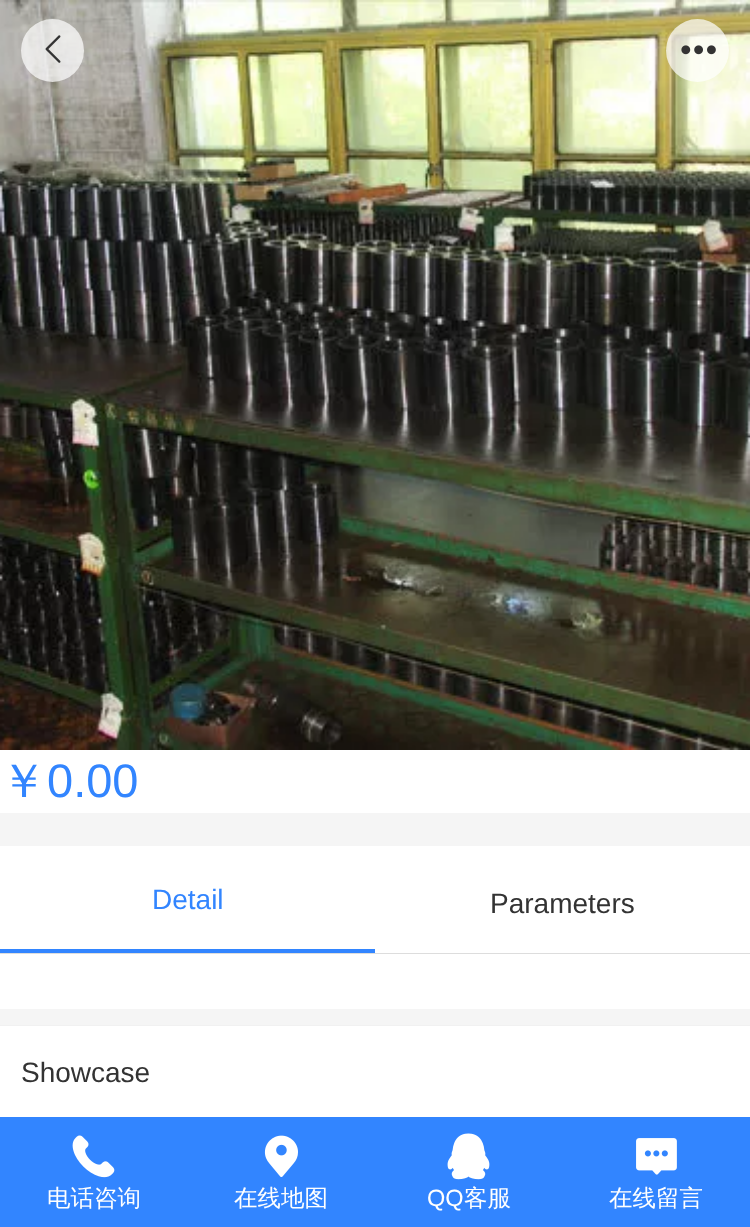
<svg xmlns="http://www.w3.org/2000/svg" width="750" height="1227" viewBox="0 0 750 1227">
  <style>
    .t1 { font: 500 47px WenQuanYi Zen Hei; fill: #3285ff; }
    .t2 { font: 47px Liberation Sans; fill: #3285ff; }
    .t3 { font: 28px Liberation Sans; fill: #3285ff; }
    .t4 { font: 28px Liberation Sans; fill: #333; }
    .t5 { font: 500 23.5px WenQuanYi Zen Hei; fill: #fff; }
    .t6 { font: 23.5px Liberation Sans; fill: #fff; }
  </style>
  <rect width="100%" height="100%" fill="#fff"/>
  <image x="0" y="0" width="750" height="750" href="images/3.png"/>
  <circle cx="52.5" cy="50.5" r="31.5" fill="#ffffffb3"/>
  <image x="45" y="35" width="16" height="28" href="images/1.png"/>
  <circle cx="697.5" cy="50.5" r="31.5" fill="#ffffffb3"/>
  <image x="681" y="45" width="35" height="10" href="images/2.png"/>
  <text x="0" y="797" class="t1">￥</text>
  <text x="47" y="797" class="t2">0.00</text>
  <rect x="0" y="813" width="750" height="33" fill="#f5f5f5"/>
  <rect x="0" y="953" width="750" height="1" fill="#ddd"/>
  <rect x="0" y="949" width="375" height="4" fill="#3285ff"/>
  <text x="152" y="909" class="t3">Detail</text>
  <text x="490" y="913" class="t4">Parameters</text>
  <rect x="0" y="1009" width="750" height="16" fill="#f5f5f5"/>
  <rect x="0" y="1025" width="750" height="1" fill="#f1f1f1"/>
  <text x="21" y="1082" class="t4">Showcase</text>
  <rect x="0" y="1117" width="750" height="110" fill="#3285ff"/>
  <image x="72" y="1135" width="43" height="43" href="images/4.png"/>
  <text x="47" y="1206" class="t5">电话咨询</text>
  <image x="264" y="1135" width="34" height="42" href="images/5.png"/>
  <text x="234" y="1206" class="t5">在线地图</text>
  <image x="447" y="1133" width="43" height="47" href="images/6.png"/>
  <text x="427" y="1206" class="t6">QQ</text>
  <text x="464" y="1206" class="t5">客服</text>
  <image x="636" y="1138" width="41" height="37" href="images/7.png"/>
  <text x="609" y="1206" class="t5">在线留言</text>
</svg>
